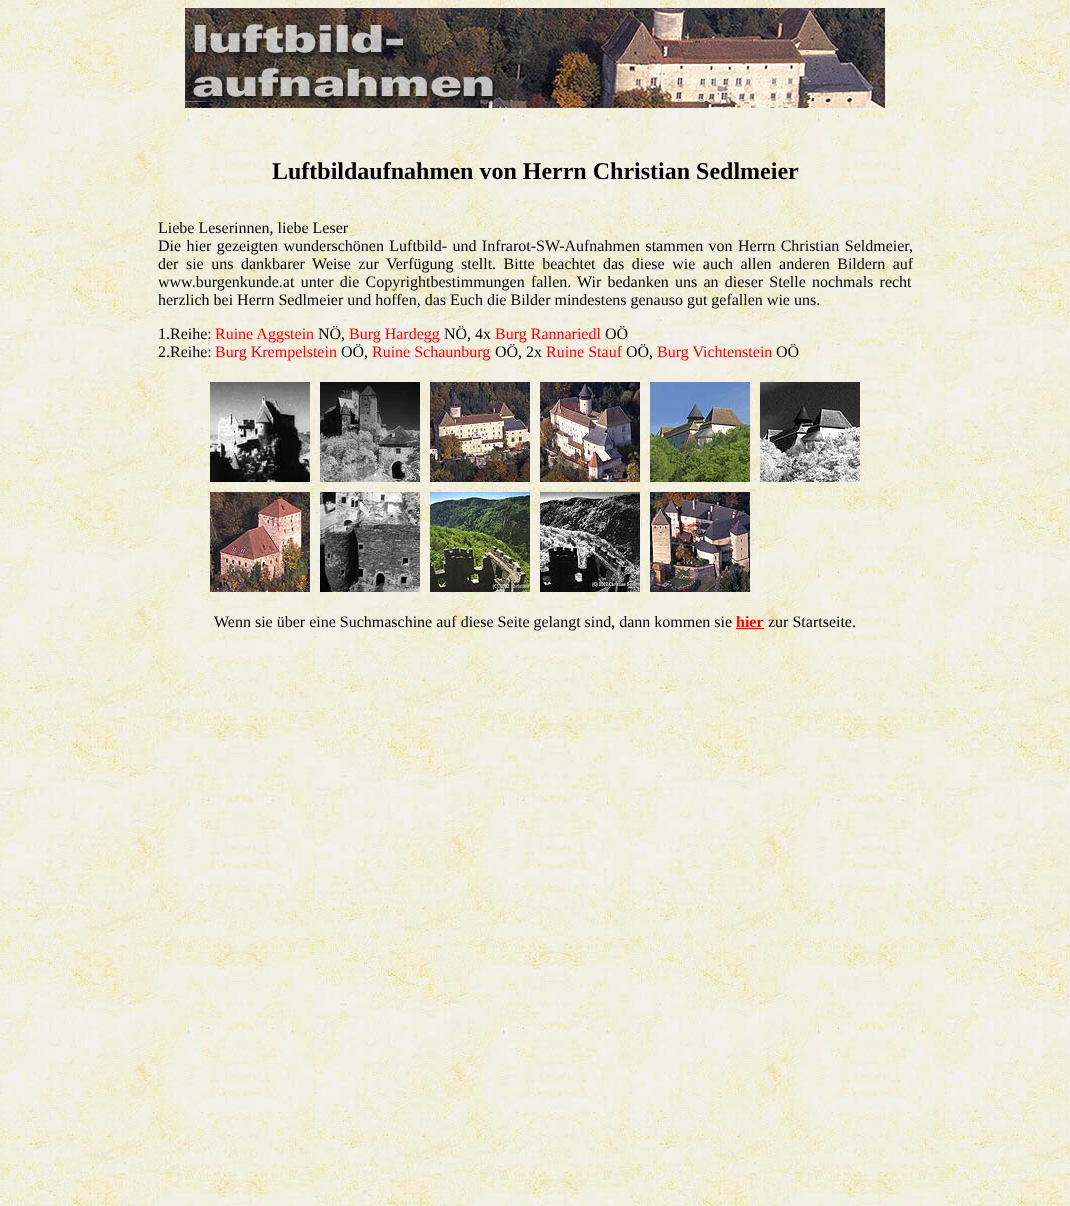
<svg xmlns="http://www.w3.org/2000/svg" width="1070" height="1206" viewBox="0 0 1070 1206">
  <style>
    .t1 { font: bold 24px Liberation Serif; fill: #000; }
    .t2 { font: 16px Liberation Serif; fill: #000; }
    .t3 { font: 16px Liberation Serif; fill: #f00; }
    .t4 { font: bold 16px Liberation Serif; fill: #f00; }
  </style>
  <rect width="100%" height="100%" fill="#fff"/>
  <image x="0" y="0" width="1070" height="1206" href="images/1.png"/>
  <image x="185" y="8" width="700" height="100" href="images/2.png"/>
  <text x="272" y="179" class="t1">Luftbildaufnahmen von Herrn Christian Sedlmeier</text>
  <text x="158" y="233" class="t2">Liebe Leserinnen, liebe Leser</text>
  <text x="158" y="251" word-spacing="1.4" class="t2">Die hier gezeigten wunderschönen Luftbild- und Infrarot-SW-Aufnahmen stammen von Herrn Christian Seldmeier,</text>
  <text x="158" y="269" word-spacing="3.5" class="t2">der sie uns dankbarer Weise zur Verfügung stellt. Bitte beachtet das diese wie auch allen anderen Bildern auf</text>
  <text x="158" y="287" word-spacing="2.25" class="t2">www.burgenkunde.at unter die Copyrightbestimmungen fallen.</text>
  <text x="577" y="287" word-spacing="2.25" class="t2">Wir bedanken uns an dieser Stelle nochmals recht</text>
  <text x="158" y="305" class="t2">herzlich bei Herrn Sedlmeier und hoffen, das Euch die Bilder mindestens genauso gut gefallen wie uns.</text>
  <text x="158" y="339" class="t2">1.Reihe:</text>
  <text x="215" y="339" class="t3">Ruine Aggstein</text>
  <text x="318" y="339" class="t2">NÖ,</text>
  <text x="349" y="339" class="t3">Burg Hardegg</text>
  <text x="444" y="339" class="t2">NÖ, 4x</text>
  <text x="495" y="339" class="t3">Burg Rannariedl</text>
  <text x="605" y="339" class="t2">OÖ</text>
  <text x="158" y="357" class="t2">2.Reihe:</text>
  <text x="215" y="357" class="t3">Burg Krempelstein</text>
  <text x="341" y="357" class="t2">OÖ,</text>
  <text x="372" y="357" class="t3">Ruine Schaunburg</text>
  <text x="495" y="357" class="t2">OÖ, 2x</text>
  <text x="546" y="357" class="t3">Ruine Stauf</text>
  <text x="626" y="357" class="t2">OÖ,</text>
  <text x="657" y="357" class="t3">Burg Vichtenstein</text>
  <text x="776" y="357" class="t2">OÖ</text>
  <image x="210" y="382" width="100" height="100" href="images/3.png"/>
  <image x="320" y="382" width="100" height="100" href="images/4.png"/>
  <image x="430" y="382" width="100" height="100" href="images/5.png"/>
  <image x="540" y="382" width="100" height="100" href="images/6.png"/>
  <image x="650" y="382" width="100" height="100" href="images/7.png"/>
  <image x="760" y="382" width="100" height="100" href="images/8.png"/>
  <image x="210" y="492" width="100" height="100" href="images/9.png"/>
  <image x="320" y="492" width="100" height="100" href="images/10.png"/>
  <image x="430" y="492" width="100" height="100" href="images/11.png"/>
  <image x="540" y="492" width="100" height="100" href="images/12.png"/>
  <image x="650" y="492" width="100" height="100" href="images/13.png"/>
  <text x="214" y="627" class="t2">Wenn sie über eine Suchmaschine auf diese Seite gelangt sind, dann kommen sie</text>
  <text x="736" y="627" class="t4">hier</text>
  <rect x="736" y="628" width="28" height="1" fill="#f00"/>
  <text x="768" y="627" class="t2">zur Startseite.</text>
</svg>
